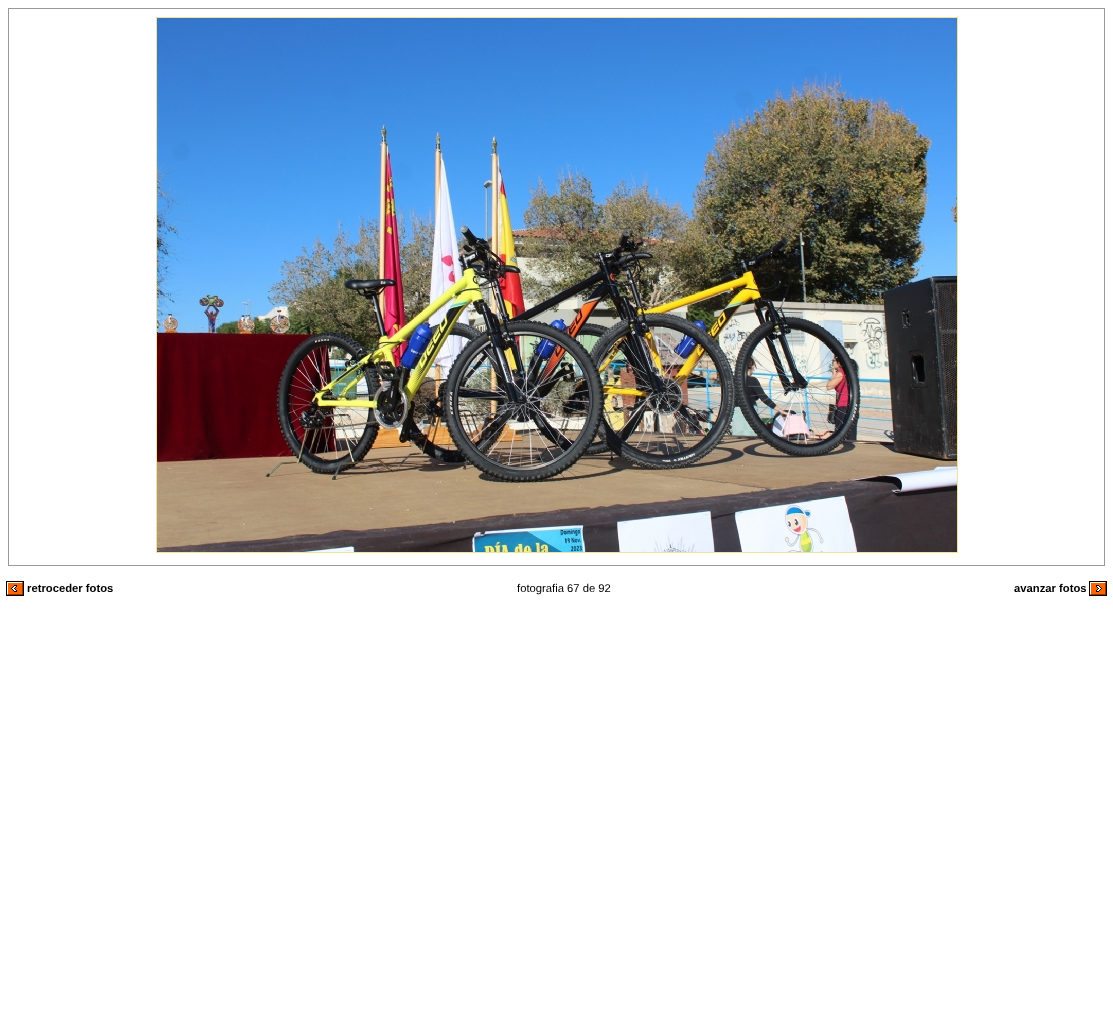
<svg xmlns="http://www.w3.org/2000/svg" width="1113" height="1035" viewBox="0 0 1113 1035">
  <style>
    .t1 { font: bold 11.25px Liberation Sans; fill: #000; }
    .t2 { font: 11.25px Liberation Sans; fill: #000; }
  </style>
  <rect width="100%" height="100%" fill="#fff"/>
  <rect x="8.5" y="8.5" width="1096" height="557" fill="none" stroke="#999"/>
  <rect x="156.5" y="17.5" width="801" height="535" fill="none" stroke="#f2e09d"/>
  <image x="157" y="18" width="800" height="534" href="images/1.png"/>
  <image x="6" y="581" width="18" height="15" href="images/2.png"/>
  <text x="27" y="592" class="t1">retroceder fotos</text>
  <text x="517" y="592" class="t2">fotografia 67 de 92</text>
  <text x="1014" y="592" class="t1">avanzar fotos</text>
  <image x="1089" y="581" width="18" height="15" href="images/3.png"/>
</svg>
